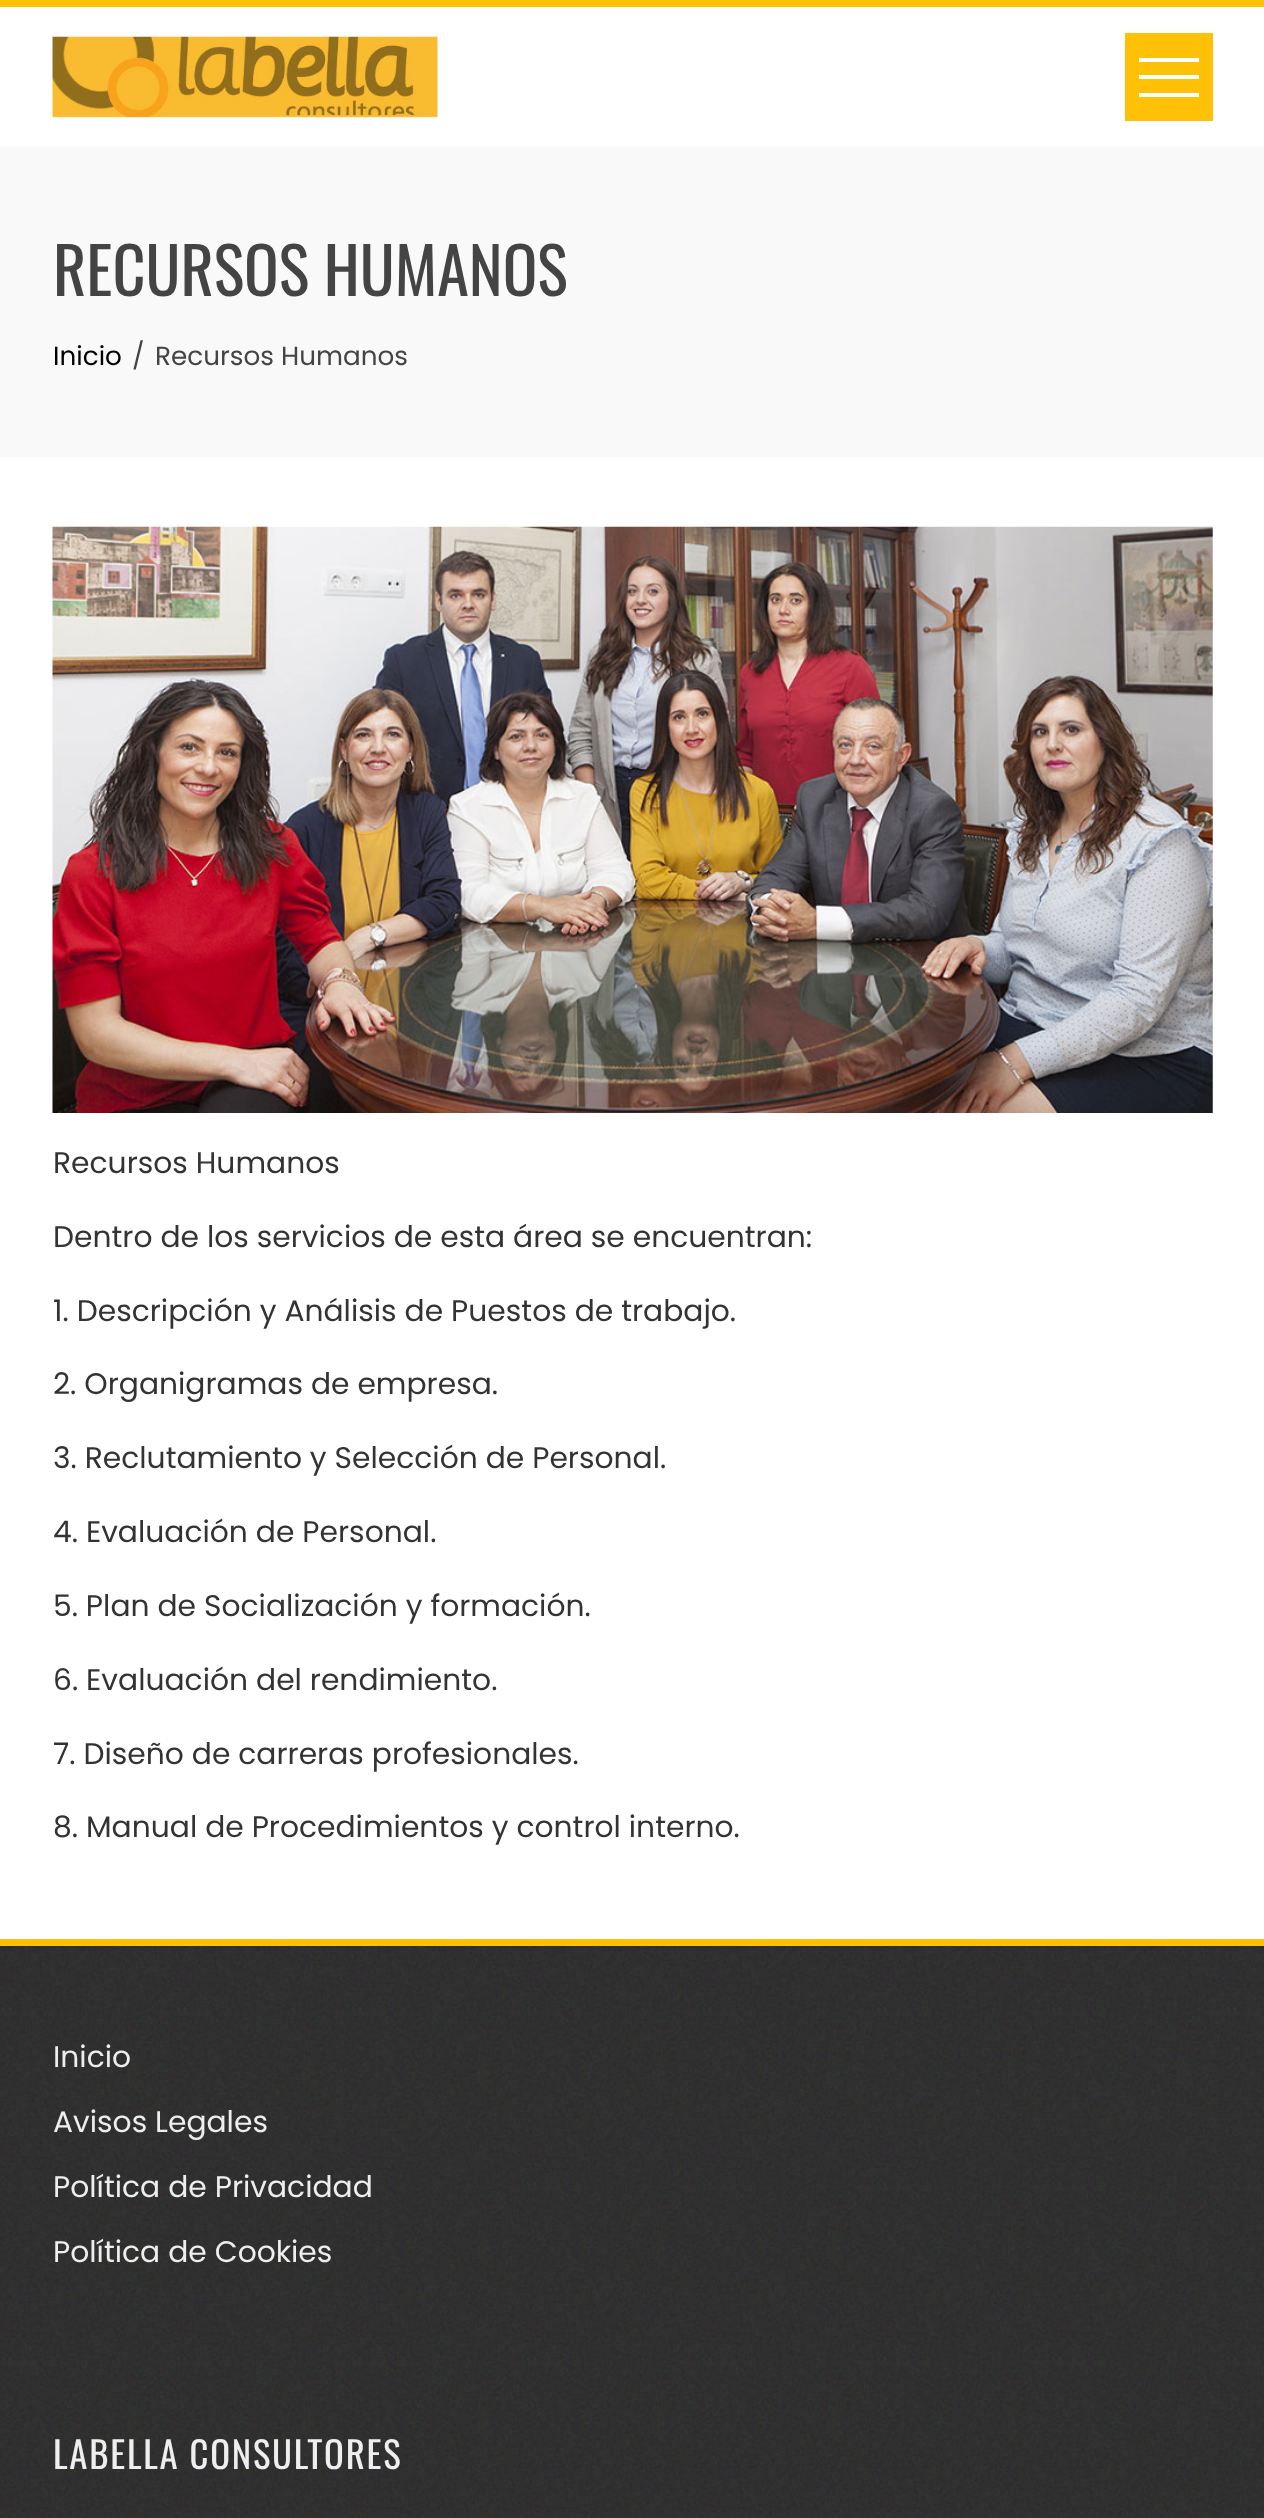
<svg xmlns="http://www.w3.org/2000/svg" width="1264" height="2518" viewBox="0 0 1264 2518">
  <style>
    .t1 { font: 64.25px Oswald; fill: #444; }
    .t2 { font: 26.25px Poppins; fill: #000; }
    .t3 { font: 26.25px Poppins; fill: #444; }
    .t4 { font: 29.75px Poppins; fill: #333; }
    .t5 { font: 29.75px Poppins; fill: #eee; }
    .t6 { font: 36.75px Oswald; letter-spacing: 1.75px; fill: #eee; }
  </style>
  <rect width="100%" height="100%" fill="#fff"/>
  <rect x="0" y="0" width="1264" height="7" fill="#ffc107"/>
  <image x="52" y="36" width="386" height="82" href="images/1.png"/>
  <rect x="1125" y="33" width="88" height="88" fill="#ffc107"/>
  <rect x="1139" y="58" width="60" height="4" fill="#fff"/>
  <rect x="1139" y="93" width="60" height="4" fill="#fff"/>
  <rect x="1139" y="75" width="60" height="4" fill="#fff"/>
  <rect x="0" y="147" width="1264" height="310" fill="#f9f9f9"/>
  <text x="53" y="296" class="t1">RECURSOS HUMANOS</text>
  <text x="53" y="365" class="t2">Inicio</text>
  <text x="132" y="365" class="t3">/</text>
  <text x="155" y="365" class="t3">Recursos Humanos</text>
  <image x="52" y="526" width="1161" height="587" href="images/2.png"/>
  <text x="53" y="1173" class="t4">Recursos Humanos</text>
  <text x="53" y="1247" class="t4">Dentro de los servicios de esta área se encuentran:</text>
  <text x="53" y="1321" class="t4">1. Descripción y Análisis de Puestos de trabajo.</text>
  <text x="53" y="1394" class="t4">2. Organigramas de empresa.</text>
  <text x="53" y="1468" class="t4">3. Reclutamiento y Selección de Personal.</text>
  <text x="53" y="1542" class="t4">4. Evaluación de Personal.</text>
  <text x="53" y="1616" class="t4">5. Plan de Socialización y formación.</text>
  <text x="53" y="1690" class="t4">6. Evaluación del rendimiento.</text>
  <text x="53" y="1764" class="t4">7. Diseño de carreras profesionales.</text>
  <text x="53" y="1837" class="t4">8. Manual de Procedimientos y control interno.</text>
  <image x="0" y="1946" width="1264" height="572" href="images/3.png"/>
  <rect x="0" y="1939" width="1264" height="7" fill="#ffc107"/>
  <text x="53" y="2067" class="t5">Inicio</text>
  <text x="53" y="2132" class="t5">Avisos Legales</text>
  <text x="53" y="2197" class="t5">Política de Privacidad</text>
  <text x="53" y="2262" class="t5">Política de Cookies</text>
  <text x="53" y="2469" class="t6">LABELLA CONSULTORES</text>
</svg>
